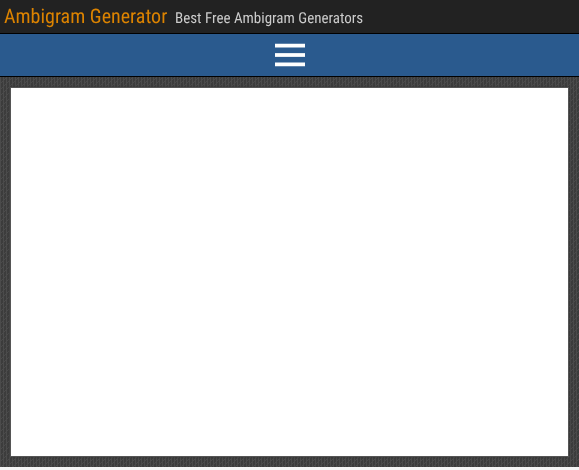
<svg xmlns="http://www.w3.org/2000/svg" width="579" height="470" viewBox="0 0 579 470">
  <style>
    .t1 { font: 20px Roboto Condensed; fill: #dc8300; }
    .t2 { font: 15px Roboto Condensed; fill: #ccc; }
  </style>
  <rect width="100%" height="100%" fill="#505050"/>
  <image x="0" y="77" width="579" height="390" href="images/1.png"/>
  <rect x="0" y="0" width="579" height="33" fill="#222"/>
  <rect x="0" y="33" width="579" height="1" fill="#000"/>
  <text x="4" y="23" class="t1">Ambigram Generator</text>
  <text x="175" y="23" class="t2">Best Free Ambigram Generators</text>
  <rect x="0" y="34" width="579" height="42" fill="#2a5a8e"/>
  <rect x="0" y="76" width="579" height="1" fill="#000"/>
  <image x="275" y="43" width="30" height="24" href="images/2.png"/>
  <rect x="0" y="77" width="579" height="390" fill="#00000040"/>
  <rect x="10" y="87" width="559" height="370" fill="#333" filter="blur(1px)"/>
  <rect x="10.5" y="87.5" width="558" height="369" fill="#fff" stroke="#555"/>
  <rect x="0" y="467" width="579" height="3" fill="#f5f5f5"/>
</svg>
